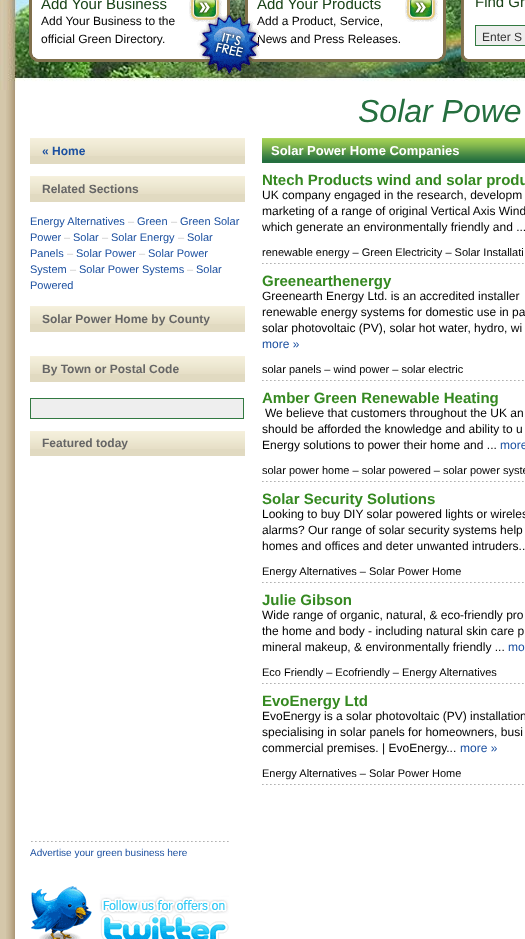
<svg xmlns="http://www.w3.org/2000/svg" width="525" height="939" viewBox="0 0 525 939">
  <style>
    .t1 { font: 15px Liberation Sans; fill: #194217; }
    .t2 { font: 12px Liberation Sans; fill: #010101; }
    .t3 { font: 12px Liberation Sans; fill: #333; }
    .t4 { font: italic 32px Liberation Sans; fill: #256f3f; }
    .t5 { font: bold 12px Liberation Sans; fill: #1c50a0; }
    .t6 { font: bold 12px Liberation Sans; fill: #666; }
    .t7 { font: 11px Liberation Sans; fill: #1c50a0; }
    .t8 { font: 11px Liberation Sans; fill: #cacaca; }
    .t9 { font: 10px Liberation Sans; fill: #1c50a0; }
    .t10 { font: bold 13px Liberation Sans; fill: #fff; }
    .t11 { font: bold 15px Liberation Sans; fill: #358921; }
    .t12 { font: 11px Liberation Sans; fill: #010101; }
    .t13 { font: 12px Liberation Sans; fill: #1c50a0; }
  </style>
  <rect width="100%" height="100%" fill="#d4c7aa"/>
  <image x="6" y="90" width="519" height="849" href="images/1.png"/>
  <image x="0" y="0" width="525" height="90" href="images/2.png"/>
  <image x="29" y="0" width="201" height="62" href="images/3.png"/>
  <text x="41" y="9" class="t1">Add Your Business</text>
  <image x="189" y="0" width="33" height="22" href="images/4.png"/>
  <text x="41" y="25" class="t2">Add Your Business to the</text>
  <text x="41" y="43" class="t2">official Green Directory.</text>
  <image x="245" y="0" width="201" height="62" href="images/5.png"/>
  <text x="257" y="25" class="t2">Add a Product, Service,</text>
  <text x="257" y="43" class="t2">News and Press Releases.</text>
  <image x="197" y="13" width="63" height="62" href="images/6.png"/>
  <text x="257" y="9" class="t1">Add Your Products</text>
  <image x="405" y="0" width="33" height="22" href="images/4.png"/>
  <image x="461" y="0" width="64" height="62" href="images/7.png"/>
  <text x="475" y="7" class="t1">Find Gr</text>
  <rect x="475.5" y="25.5" width="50" height="20" fill="#eee" stroke="#327941"/>
  <text x="482" y="41" class="t3">Enter S</text>
  <text x="358" y="122" class="t4">Solar Powe</text>
  <rect x="30" y="156" width="215" height="8" fill="#e1dac1"/>
  <image x="30" y="138" width="215" height="18" href="images/8.png"/>
  <text x="42" y="155" class="t5">« Home</text>
  <rect x="30" y="194" width="215" height="8" fill="#e1dac1"/>
  <image x="30" y="176" width="215" height="18" href="images/8.png"/>
  <text x="42" y="193" class="t6">Related Sections</text>
  <text x="30" y="225" class="t7">Energy Alternatives</text>
  <text x="128" y="225" class="t8">–</text>
  <text x="137" y="225" class="t7">Green</text>
  <text x="171" y="225" class="t8">–</text>
  <text x="180" y="225" class="t7">Green Solar</text>
  <text x="30" y="241" class="t7">Power</text>
  <text x="64" y="241" class="t8">–</text>
  <text x="73" y="241" class="t7">Solar</text>
  <text x="102" y="241" class="t8">–</text>
  <text x="111" y="241" class="t7">Solar Energy</text>
  <text x="178" y="241" class="t8">–</text>
  <text x="187" y="241" class="t7">Solar</text>
  <text x="30" y="257" class="t7">Panels</text>
  <text x="67" y="257" class="t8">–</text>
  <text x="76" y="257" class="t7">Solar Power</text>
  <text x="139" y="257" class="t8">–</text>
  <text x="148" y="257" class="t7">Solar Power</text>
  <text x="30" y="273" class="t7">System</text>
  <text x="70" y="273" class="t8">–</text>
  <text x="79" y="273" class="t7">Solar Power Systems</text>
  <text x="187" y="273" class="t8">–</text>
  <text x="196" y="273" class="t7">Solar</text>
  <text x="30" y="289" class="t7">Powered</text>
  <rect x="30" y="324" width="215" height="8" fill="#e1dac1"/>
  <image x="30" y="306" width="215" height="18" href="images/8.png"/>
  <text x="42" y="323" class="t6">Solar Power Home by County</text>
  <rect x="30" y="374" width="215" height="8" fill="#e1dac1"/>
  <image x="30" y="356" width="215" height="18" href="images/8.png"/>
  <text x="42" y="373" class="t6">By Town or Postal Code</text>
  <rect x="30.5" y="398.5" width="213" height="20" fill="#eee" stroke="#327941"/>
  <rect x="30" y="449" width="215" height="7" fill="#e1dac1"/>
  <image x="30" y="431" width="215" height="18" href="images/8.png"/>
  <text x="42" y="447" class="t6">Featured today</text>
  <image x="31" y="841" width="198" height="1" href="images/9.png"/>
  <text x="30" y="856" class="t9">Advertise your green business here</text>
  <rect x="75" y="858" width="25" height="1" fill="#fff"/>
  <image x="31" y="886" width="198" height="53" href="images/10.png"/>
  <rect x="262" y="160" width="263" height="3" fill="#256f3f"/>
  <image x="262" y="138" width="263" height="22" href="images/11.png"/>
  <text x="271" y="155" class="t10">Solar Power Home Companies</text>
  <image x="262" y="263" width="262" height="1" href="images/12.png"/>
  <text x="262" y="185" class="t11">Ntech Products wind and solar produ</text>
  <text x="262" y="199" class="t2">UK company engaged in the research, developm</text>
  <text x="262" y="215" class="t2">marketing of a range of original Vertical Axis Wind</text>
  <text x="262" y="231" class="t2">which generate an environmentally friendly and ...</text>
  <text x="262" y="256" class="t12">renewable energy – Green Electricity – Solar Installati</text>
  <image x="262" y="380" width="262" height="1" href="images/12.png"/>
  <text x="262" y="286" class="t11">Greenearthenergy</text>
  <text x="262" y="300" class="t2">Greenearth Energy Ltd. is an accredited installer</text>
  <text x="262" y="316" class="t2">renewable energy systems for domestic use in pa</text>
  <text x="262" y="332" class="t2">solar photovoltaic (PV), solar hot water, hydro, wi</text>
  <text x="262" y="348" class="t13">more »</text>
  <text x="262" y="373" class="t12">solar panels – wind power – solar electric</text>
  <image x="262" y="481" width="262" height="1" href="images/12.png"/>
  <text x="262" y="403" class="t11">Amber Green Renewable Heating</text>
  <text x="265" y="417" class="t2">We believe that customers throughout the UK an</text>
  <text x="262" y="433" class="t2">should be afforded the knowledge and ability to u</text>
  <text x="262" y="449" class="t2">Energy solutions to power their home and ...</text>
  <text x="500" y="449" class="t13">more</text>
  <text x="262" y="474" class="t12">solar power home – solar powered – solar power syste</text>
  <image x="262" y="582" width="262" height="1" href="images/12.png"/>
  <text x="262" y="504" class="t11">Solar Security Solutions</text>
  <text x="262" y="518" class="t2">Looking to buy DIY solar powered lights or wireles</text>
  <text x="262" y="534" class="t2">alarms? Our range of solar security systems help</text>
  <text x="262" y="550" class="t2">homes and offices and deter unwanted intruders..</text>
  <text x="262" y="575" class="t12">Energy Alternatives – Solar Power Home</text>
  <image x="262" y="683" width="262" height="1" href="images/12.png"/>
  <text x="262" y="605" class="t11">Julie Gibson</text>
  <text x="262" y="619" class="t2">Wide range of organic, natural, &amp; eco-friendly pro</text>
  <text x="262" y="635" class="t2">the home and body - including natural skin care p</text>
  <text x="262" y="651" class="t2">mineral makeup, &amp; environmentally friendly ...</text>
  <text x="508" y="651" class="t13">mo</text>
  <text x="262" y="676" class="t12">Eco Friendly – Ecofriendly – Energy Alternatives</text>
  <image x="262" y="784" width="262" height="1" href="images/12.png"/>
  <text x="262" y="706" class="t11">EvoEnergy Ltd</text>
  <text x="262" y="720" class="t2">EvoEnergy is a solar photovoltaic (PV) installation</text>
  <text x="262" y="736" class="t2">specialising in solar panels for homeowners, busi</text>
  <text x="262" y="752" class="t2">commercial premises. | EvoEnergy...</text>
  <text x="460" y="752" class="t13">more »</text>
  <text x="262" y="777" class="t12">Energy Alternatives – Solar Power Home</text>
</svg>
